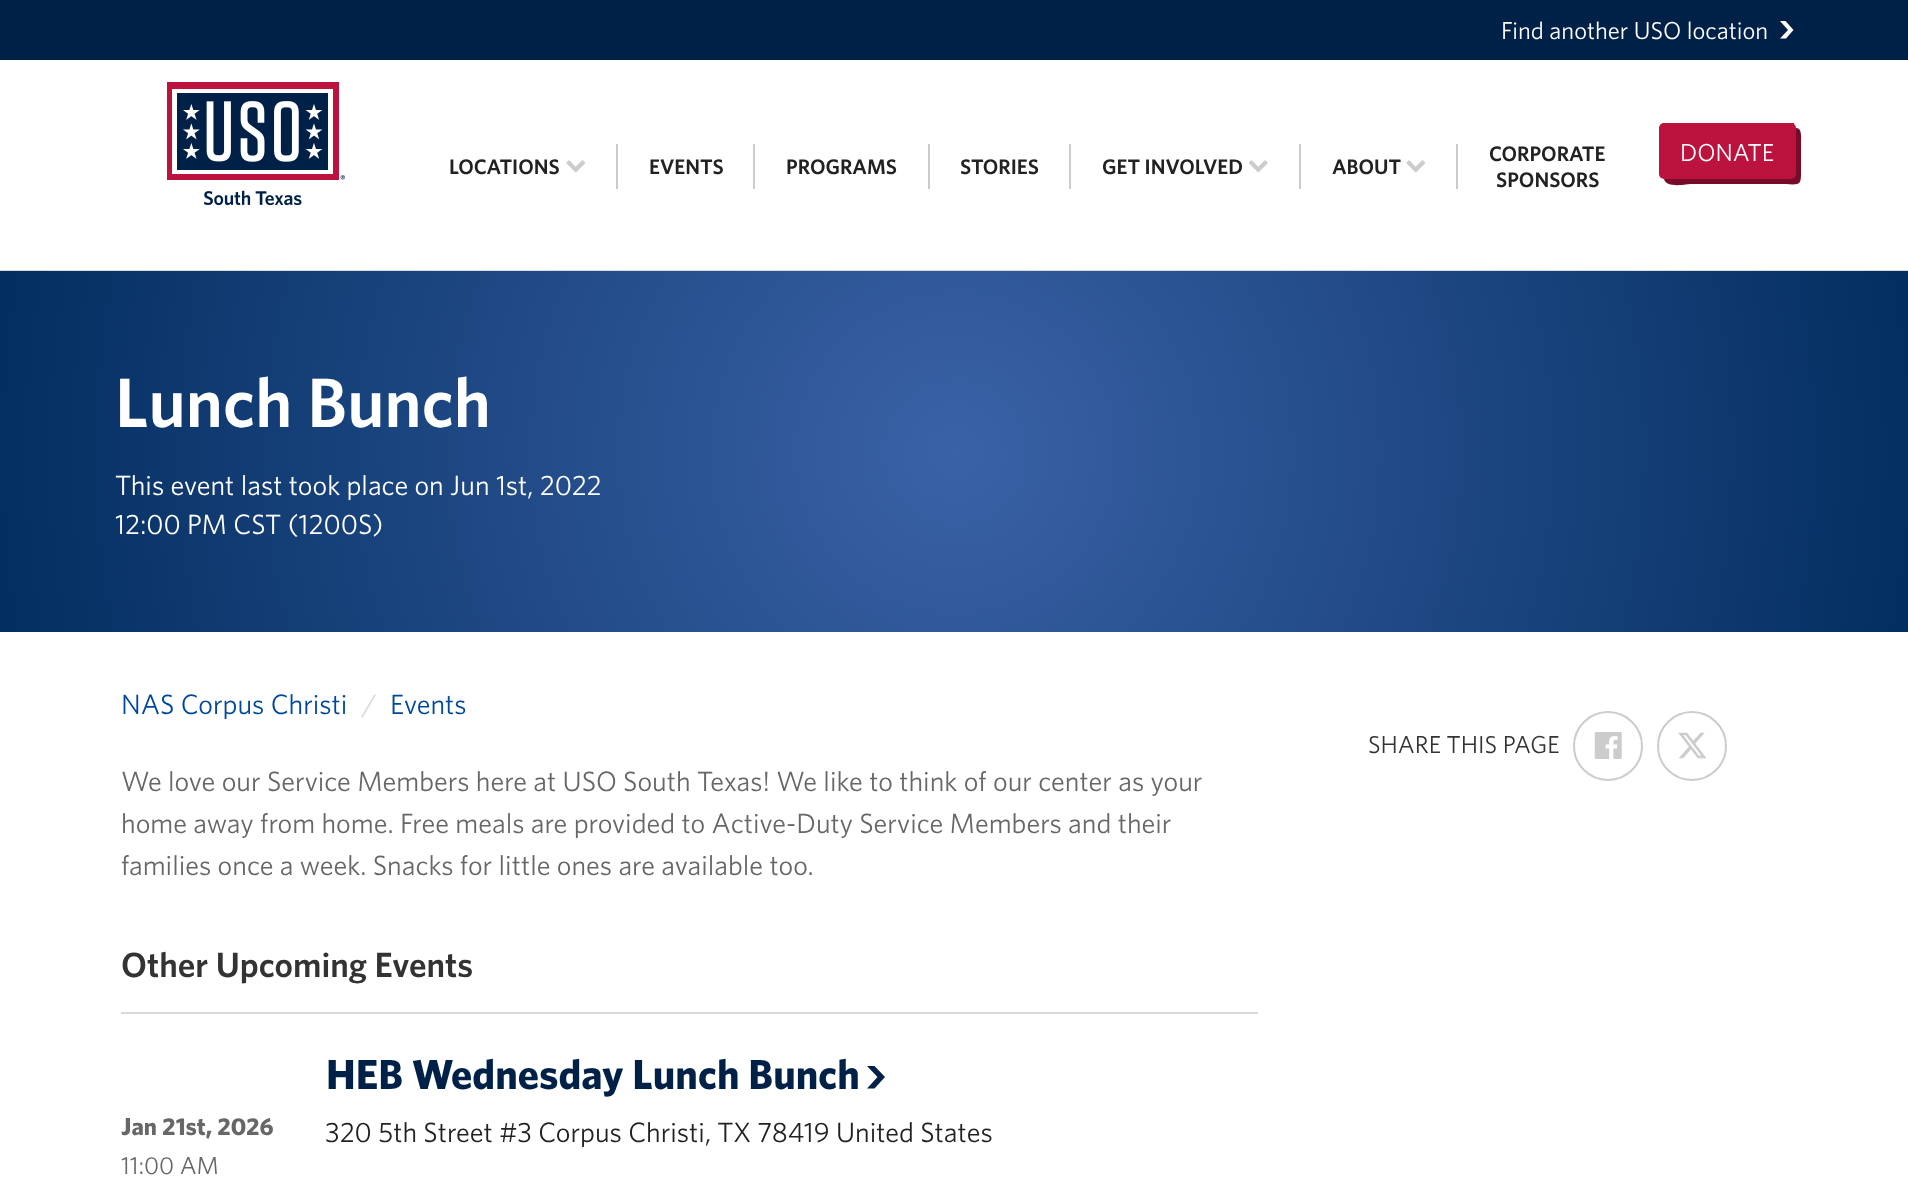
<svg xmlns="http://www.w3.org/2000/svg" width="1908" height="1177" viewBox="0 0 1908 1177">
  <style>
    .t1 { font: 24.5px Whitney; fill: #fff; }
    .t2 { font: 600 21px Whitney; fill: #222; }
    .t3 { font: 600 70px Whitney; fill: #fff; }
    .t4 { font: 28px Whitney; fill: #fff; }
    .t5 { font: 28px Whitney; fill: #004999; }
    .t6 { font: 28px Whitney; fill: #d9d9d9; }
    .t7 { font: 28px Whitney; fill: #676767; }
    .t8 { font: 600 35px Whitney; fill: #333; }
    .t9 { font: bold 42px Whitney; fill: #002147; }
    .t10 { font: bold 24.5px Whitney; fill: #676767; }
    .t11 { font: 24.5px Whitney; fill: #676767; }
    .t12 { font: 28px Whitney; fill: #222; }
    .t13 { font: 24.5px Whitney; fill: #333; }
  </style>
  <defs>
    <radialGradient id="g1" gradientUnits="userSpaceOnUse" cx="955" cy="452" r="971"><stop offset="0" stop-color="#3a62a7"/><stop offset="1" stop-color="#032e60"/></radialGradient>
  </defs>
  <rect width="100%" height="100%" fill="#fff"/>
  <rect x="0" y="0" width="1908" height="60" fill="#002147"/>
  <text x="1501" y="39" class="t1">Find another USO location</text>
  <path d="M1780 38.5H1786L1793.5 30L1785.5 21H1780L1788 30Z" fill="#fff"/>
  <rect x="0" y="270" width="1908" height="1" fill="#d9d9d9"/>
  <image x="167" y="82" width="178" height="124" href="images/1.png"/>
  <text x="449" y="174" class="t2">LOCATIONS</text>
  <image x="566" y="160" width="19" height="13" href="images/2.png"/>
  <rect x="616" y="144" width="2" height="45" fill="#ccc"/>
  <text x="649" y="174" class="t2">EVENTS</text>
  <rect x="753" y="144" width="2" height="45" fill="#ccc"/>
  <text x="786" y="174" class="t2">PROGRAMS</text>
  <rect x="928" y="144" width="2" height="45" fill="#ccc"/>
  <text x="960" y="174" class="t2">STORIES</text>
  <rect x="1069" y="144" width="2" height="45" fill="#ccc"/>
  <text x="1102" y="174" class="t2">GET INVOLVED</text>
  <image x="1249" y="160" width="19" height="13" href="images/3.png"/>
  <rect x="1299" y="144" width="2" height="45" fill="#ccc"/>
  <text x="1332" y="174" class="t2">ABOUT</text>
  <image x="1406" y="160" width="19" height="13" href="images/2.png"/>
  <rect x="1456" y="144" width="2" height="45" fill="#ccc"/>
  <text x="1489" y="161" class="t2">CORPORATE</text>
  <text x="1496" y="187" class="t2">SPONSORS</text>
  <path d="M1664 178C1664 189 1689 184 1690 184H1775C1803 184 1801 189 1801 164V141C1801 136 1802 128 1796 128V166C1796 170 1797 178 1790 178Z" fill="#760c27"/>
  <rect x="1659" y="123" width="137" height="56" rx="5" fill="#bb133e"/>
  <rect x="1663" y="123" width="131" height="1" fill="#bb133e"/>
  <text x="1680" y="161" class="t1">DONATE</text>
  <rect x="0" y="271" width="1908" height="361" fill="url(#g1)"/>
  <text x="115" y="427" class="t3">Lunch Bunch</text>
  <text x="115" y="495" class="t4">This event last took place on Jun 1st, 2022</text>
  <text x="115" y="534" class="t4">12:00 PM CST (1200S)</text>
  <text x="121" y="714" class="t5">NAS Corpus Christi</text>
  <text x="362" y="714" class="t6">/</text>
  <text x="390" y="714" class="t5">Events</text>
  <text x="121" y="791" class="t7">We love our Service Members here at USO South Texas! We like to think of our center as your</text>
  <text x="121" y="833" class="t7">home away from home. Free meals are provided to Active-Duty Service Members and their</text>
  <text x="121" y="875" class="t7">families once a week. Snacks for little ones are available too.</text>
  <rect x="121" y="1012" width="1137" height="2" fill="#d9d9d9"/>
  <text x="121" y="977" class="t8">Other Upcoming Events</text>
  <text x="326" y="1089" class="t9">HEB Wednesday Lunch Bunch</text>
  <path d="M867 1088.5H874.5L885 1077L874.5 1066H867L877.5 1077Z" fill="#002147"/>
  <text x="121" y="1135" class="t10">Jan 21st, 2026</text>
  <text x="121" y="1174" class="t11">11:00 AM</text>
  <text x="325" y="1142" class="t12">320 5th Street #3 Corpus Christi, TX 78419 United States</text>
  <text x="1368" y="753" class="t13">SHARE THIS PAGE</text>
  <circle cx="1608" cy="746" r="34" fill="none" stroke="#ccc" stroke-width="2"/>
  <image x="1594" y="732" width="28" height="27" href="images/4.png"/>
  <circle cx="1692" cy="746" r="34" fill="none" stroke="#ccc" stroke-width="2"/>
  <image x="1678" y="732" width="29" height="27" href="images/5.png"/>
</svg>
